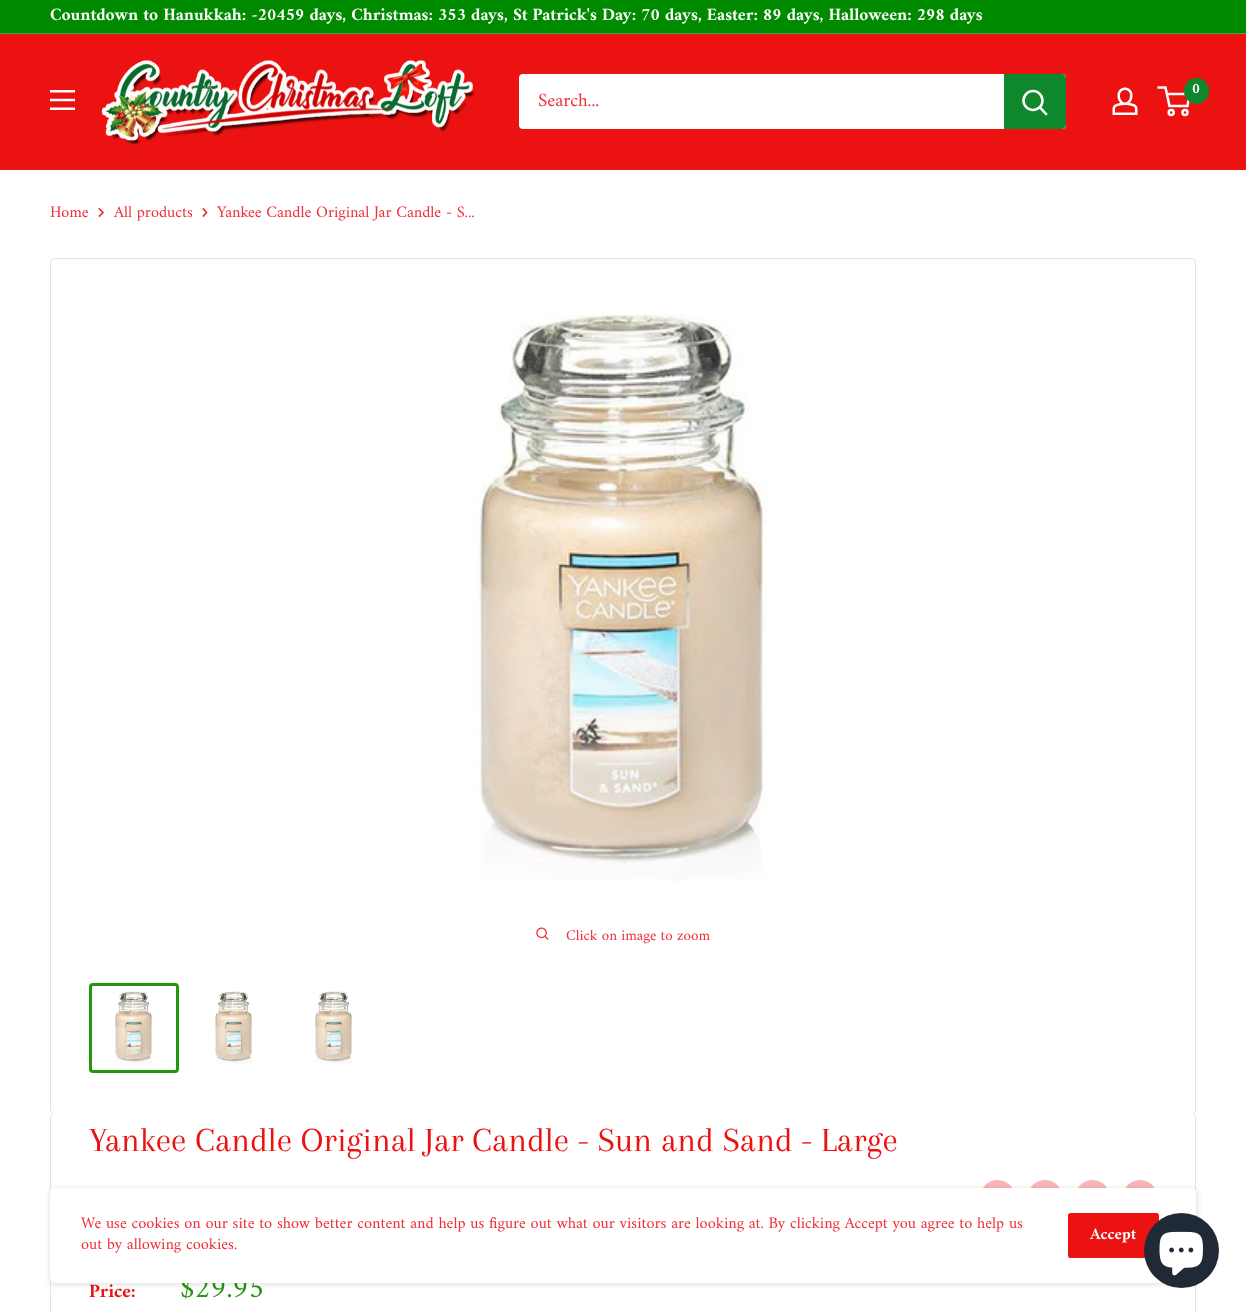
<svg xmlns="http://www.w3.org/2000/svg" width="1246" height="1313" viewBox="0 0 1246 1313">
  <style>
    .t1 { font: bold 17.5px Amiri; fill: #fff; }
    .t2 { font: bold 15px Amiri; fill: #fff; }
    .t3 { font: 19px Amiri; fill: #ef2e37; }
    .t4 { font: 16.25px Amiri; fill: #ef2e37; }
    .t5 { font: 15px Amiri; fill: #ef2e37; }
    .t6 { font: 35px Arapey; fill: #ec1212; }
    .t7 { font: bold 19px Amiri; fill: #ec1212; }
    .t8 { font: 30px Amiri; fill: #24960e; }
    .t9 { font: bold 16.25px Amiri; fill: #fff; }
  </style>
  <rect width="100%" height="100%" fill="#fff"/>
  <rect x="0" y="0" width="1246" height="33" fill="#008a00"/>
  <rect x="0" y="33" width="1246" height="1" fill="#46a442"/>
  <text x="50" y="20" class="t1">Countdown to Hanukkah: -20459 days, Christmas: 353 days, St Patrick's Day: 70 days, Easter: 89 days, Halloween: 298 days</text>
  <rect x="0" y="34" width="1246" height="136" fill="#ec1212"/>
  <image x="101" y="60" width="374" height="85" href="images/1.png"/>
  <image x="1112" y="87" width="26" height="28" href="images/2.png"/>
  <circle cx="1171.2" cy="112.5" r="2.5" fill="none" stroke="#fff" stroke-width="2.5"/>
  <circle cx="1185" cy="112.5" r="2.5" fill="none" stroke="#fff" stroke-width="2.5"/>
  <path d="M1166.5 94H1189.5L1187.5 106H1169.5L1165.5 87.5H1157.5" fill="none" stroke="#fff" stroke-width="2.5"/>
  <rect x="1184" y="78" width="25" height="26" rx="12.5" fill="#0f872c"/>
  <text x="1192" y="93" class="t2">0</text>
  <image x="50" y="90" width="25" height="20" href="images/3.png"/>
  <rect x="519" y="74" width="547" height="55" rx="4" fill="#fff"/>
  <text x="538" y="106" class="t3">Search...</text>
  <path d="M1004 74H1062C1064 74 1066 76 1066 78V125C1066 127 1064 129 1062 129H1004Z" fill="#0f872c"/>
  <path d="M1046 114L1040 107.5" fill="none" stroke="#fff" stroke-width="2.5" stroke-linecap="square"/>
  <circle cx="1033" cy="100.5" r="9.5" fill="none" stroke="#fff" stroke-width="2.5"/>
  <text x="50" y="217" class="t4">Home</text>
  <path d="M99.5 209L103 212.5L99.5 216" fill="none" stroke="#ef2e37" stroke-width="1.7" stroke-linecap="square"/>
  <text x="114" y="217" class="t4">All products</text>
  <path d="M203.5 209L206.5 212.5L203.5 216" fill="none" stroke="#ef2e37" stroke-width="1.7" stroke-linecap="square"/>
  <text x="217" y="217" class="t4">Yankee Candle Original Jar Candle - S...</text>
  <rect x="50.5" y="258.5" width="1145" height="855" rx="3.5" fill="none" stroke="#e7e2de"/>
  <image x="473" y="314" width="294" height="567" href="images/4.png"/>
  <image x="536" y="927" width="13" height="13" href="images/5.png"/>
  <text x="566" y="940" class="t5">Click on image to zoom</text>
  <rect x="90.5" y="984.5" width="87" height="87" rx="2.5" fill="none" stroke="#24960e" stroke-width="3"/>
  <image x="115" y="991" width="38" height="73" href="images/6.png"/>
  <image x="215" y="991" width="38" height="73" href="images/6.png"/>
  <image x="315" y="991" width="38" height="73" href="images/6.png"/>
  <path d="M54 1113C51 1113 50 1115 50 1118C50 1115 52 1114 54 1114H1192C1194 1114 1195 1115 1196 1116C1195 1114 1194 1113 1192 1113Z" fill="#fff"/>
  <path d="M54 1114H1192C1195 1114 1196 1115 1196 1118V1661C1196 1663 1195 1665 1192 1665H54C52 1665 50 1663 50 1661V1118C50 1115 52 1114 54 1114ZM54 1114H1192C1194 1114 1195 1115 1195 1118V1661C1195 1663 1194 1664 1192 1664H54C52 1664 51 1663 51 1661V1118C51 1115 52 1114 54 1114Z" fill="#e7e2de" fill-rule="evenodd"/>
  <text x="89" y="1151" class="t6">Yankee Candle Original Jar Candle - Sun and Sand - Large</text>
  <image x="983" y="1180" width="29" height="8" href="images/7.png"/>
  <image x="1030" y="1180" width="30" height="8" href="images/8.png"/>
  <image x="1078" y="1180" width="29" height="8" href="images/7.png"/>
  <image x="1125" y="1180" width="30" height="8" href="images/8.png"/>
  <text x="89" y="1297" class="t7">Price:</text>
  <text x="180" y="1297" class="t8">$29.95</text>
  <rect x="49" y="1188" width="1149" height="97" rx="5" fill="#0000001a" filter="blur(2.5px)"/>
  <rect x="50" y="1188" width="1146" height="95" rx="4" fill="#fff"/>
  <rect x="1068" y="1213" width="91" height="45" rx="2.5" fill="#ec1212"/>
  <circle cx="1181.5" cy="1250.5" r="37.5" fill="#202a36"/>
  <image x="1159" y="1231" width="44" height="45" href="images/9.png"/>
  <text x="81" y="1228" class="t4">We use cookies on our site to show better content and help us figure out what our visitors are looking at. By clicking Accept you agree to help us</text>
  <text x="81" y="1249" class="t4">out by allowing cookies.</text>
  <text x="1090" y="1239" class="t9">Accept</text>
</svg>
